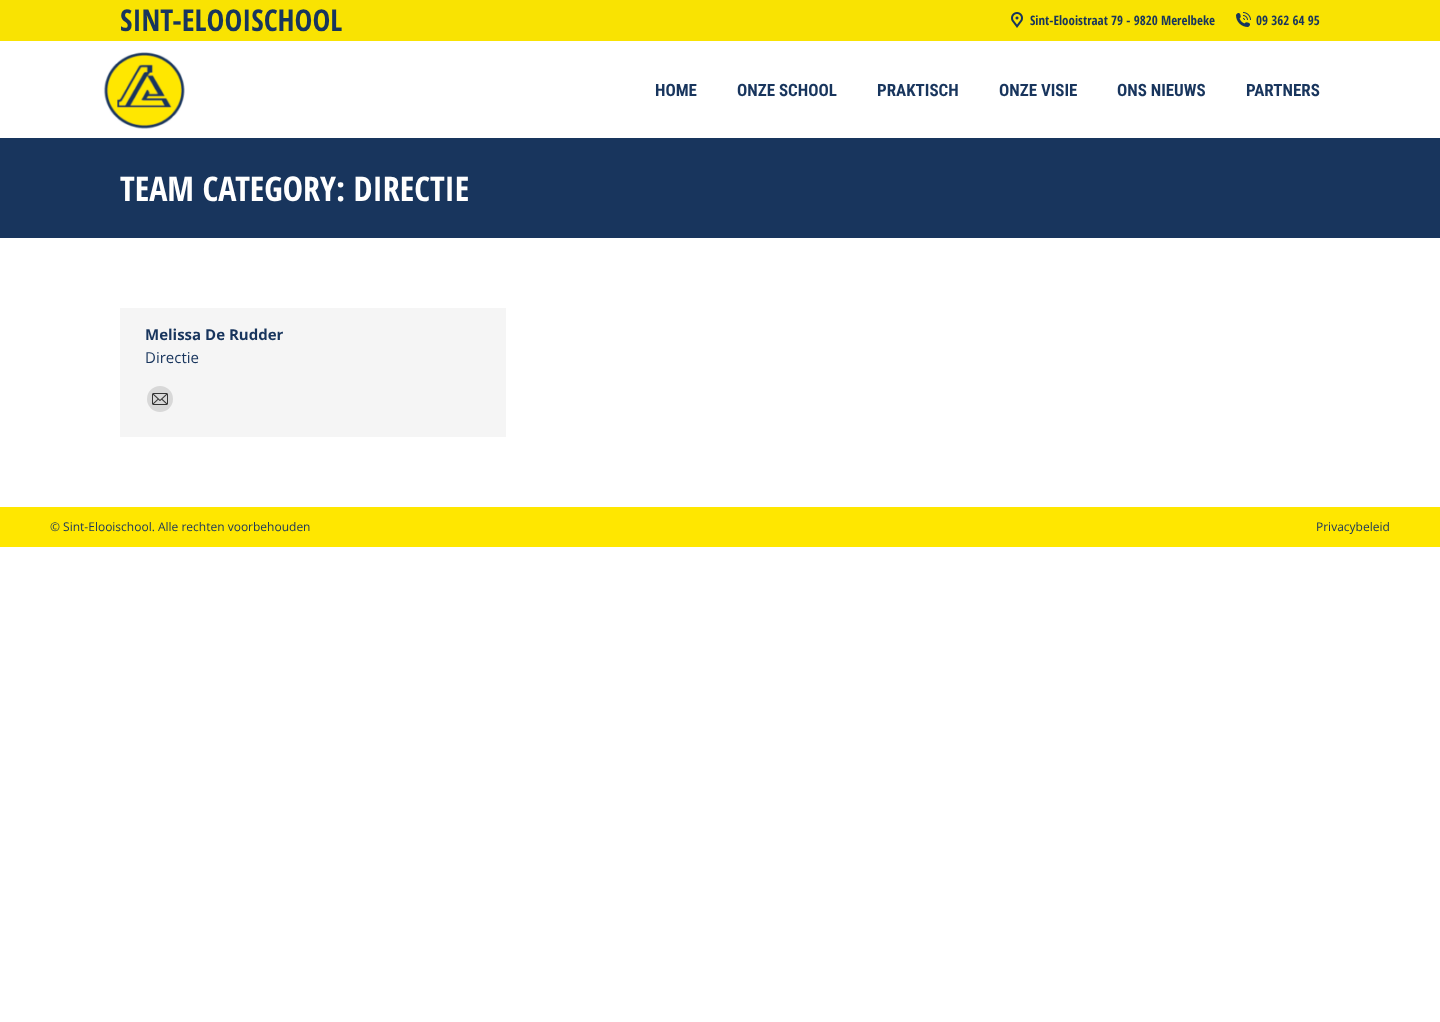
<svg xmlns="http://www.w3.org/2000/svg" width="1440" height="1022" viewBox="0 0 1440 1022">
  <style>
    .t1 { font: bold 30px Open Sans Condensed; fill: #18355d; }
    .t2 { font: bold 13px Open Sans Condensed; fill: #18355d; }
    .t3 { font: bold 17px Roboto Condensed; fill: #18355d; }
    .t4 { font: bold 34px Open Sans Condensed; fill: #fff; }
    .t5 { font: bold 15px Open Sans; fill: #18355d; }
    .t6 { font: 15px Open Sans; fill: #18355d; }
    .t7 { font: 12px Open Sans; fill: #18355d; }
  </style>
  <rect width="100%" height="100%" fill="#fff"/>
  <rect x="0" y="0" width="1440" height="41" fill="#f9e302"/>
  <text x="120" y="31" class="t1">SINT-ELOOISCHOOL</text>
  <image x="1011" y="12" width="12" height="16" href="images/1.png"/>
  <text x="1030" y="25" class="t2">Sint-Elooistraat 79 - 9820 Merelbeke</text>
  <image x="1236" y="12" width="15" height="15" href="images/2.png"/>
  <text x="1256" y="25" class="t2">09 362 64 95</text>
  <image x="103" y="52" width="82" height="77" href="images/3.png"/>
  <text x="655" y="96" class="t3">HOME</text>
  <text x="737" y="96" class="t3">ONZE SCHOOL</text>
  <text x="877" y="96" class="t3">PRAKTISCH</text>
  <text x="999" y="96" class="t3">ONZE VISIE</text>
  <text x="1117" y="96" class="t3">ONS NIEUWS</text>
  <text x="1246" y="96" class="t3">PARTNERS</text>
  <rect x="0" y="138" width="1440" height="100" fill="#18355d"/>
  <text x="120" y="201" class="t4">TEAM CATEGORY: DIRECTIE</text>
  <rect x="120" y="308" width="386" height="129" fill="#f5f5f5"/>
  <text x="145" y="340" class="t5">Melissa De Rudder</text>
  <text x="145" y="363" class="t6">Directie</text>
  <circle cx="160" cy="399" r="13" fill="#d8d8d8"/>
  <image x="152" y="393" width="16" height="12" href="images/4.png"/>
  <rect x="0" y="507" width="1440" height="40" fill="#ffe700"/>
  <text x="50" y="531" class="t7">© Sint-Elooischool. Alle rechten voorbehouden</text>
  <text x="1316" y="531" class="t7">Privacybeleid</text>
</svg>
